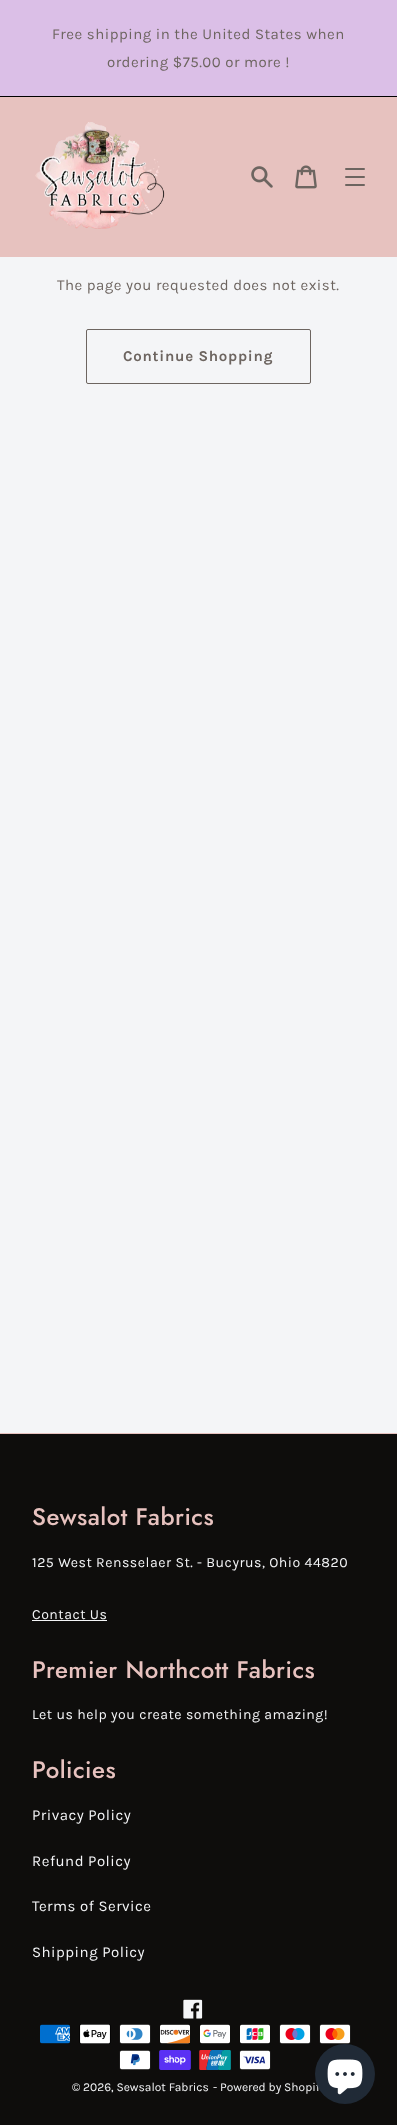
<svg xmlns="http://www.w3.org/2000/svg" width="397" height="2125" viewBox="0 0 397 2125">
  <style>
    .t1 { font: 15px Karla; letter-spacing: 0.5px; fill: #6d6560; }
    .t2 { font: bold 15px Karla; letter-spacing: 0.75px; fill: #6d6560; }
    .t3 { font: 500 24px Jost; letter-spacing: 0.5px; fill: #e7c2bf; }
    .t4 { font: 14.1px Karla; letter-spacing: 0.5px; fill: #f4f5f7; }
    .t5 { font: 15px Karla; letter-spacing: 0.5px; fill: #f4f5f7; }
    .t6 { font: 12px Karla; fill: #f4f5f7; }
  </style>
  <rect width="100%" height="100%" fill="#f4f5f7"/>
  <rect x="0" y="0" width="397" height="96" fill="#dbbfe7"/>
  <rect x="0" y="96" width="397" height="1" fill="#000"/>
  <text x="52" y="39" class="t1">Free shipping in the United States when</text>
  <text x="107" y="67" class="t1">ordering $75.00 or more !</text>
  <rect x="0" y="97" width="397" height="160" fill="#e7c2bf"/>
  <image x="35" y="122" width="130" height="107" href="images/1.png"/>
  <image x="251" y="166" width="22" height="22" href="images/2.png"/>
  <image x="295" y="165" width="22" height="24" href="images/3.png"/>
  <rect x="345" y="176" width="20" height="2" rx="1" fill="#6d6560"/>
  <rect x="345" y="168" width="20" height="2" rx="1" fill="#6d6560"/>
  <rect x="345" y="184" width="20" height="2" rx="1" fill="#6d6560"/>
  <text x="57" y="290" class="t1">The page you requested does not exist.</text>
  <rect x="86.5" y="329.5" width="224" height="54" rx="1.5" fill="none" stroke="#6d6560"/>
  <text x="123" y="361" class="t2">Continue Shopping</text>
  <rect x="0" y="1434" width="397" height="691" fill="#0e0d0c"/>
  <rect x="0" y="1433" width="397" height="1" fill="#e7c2bf"/>
  <text x="32" y="1525" class="t3">Sewsalot Fabrics</text>
  <text x="32" y="1567" class="t4">125 West Rensselaer St. - Bucyrus, Ohio 44820</text>
  <text x="32" y="1619" class="t4">Contact Us</text>
  <rect x="32" y="1620" width="75" height="1" fill="#f4f5f7"/>
  <text x="32" y="1678" class="t3">Premier Northcott Fabrics</text>
  <text x="32" y="1719" class="t4">Let us help you create something amazing!</text>
  <text x="32" y="1778" class="t3">Policies</text>
  <text x="32" y="1820" class="t5">Privacy Policy</text>
  <text x="32" y="1866" class="t5">Refund Policy</text>
  <text x="32" y="1911" class="t5">Terms of Service</text>
  <text x="32" y="1957" class="t5">Shipping Policy</text>
  <image x="183" y="1999" width="20" height="20" href="images/4.png"/>
  <image x="40" y="2024" width="30" height="20" href="images/5.png"/>
  <image x="79" y="2024" width="32" height="20" href="images/6.png"/>
  <image x="119" y="2024" width="32" height="20" href="images/7.png"/>
  <image x="160" y="2024" width="30" height="20" href="images/8.png"/>
  <image x="200" y="2024" width="30" height="20" href="images/9.png"/>
  <image x="240" y="2024" width="30" height="20" href="images/10.png"/>
  <image x="279" y="2024" width="32" height="20" href="images/11.png"/>
  <image x="319" y="2024" width="32" height="20" href="images/12.png"/>
  <image x="119" y="2050" width="32" height="20" href="images/13.png"/>
  <image x="159" y="2050" width="32" height="20" href="images/14.png"/>
  <image x="199" y="2050" width="32" height="20" href="images/15.png"/>
  <image x="239" y="2050" width="32" height="20" href="images/16.png"/>
  <text x="72" y="2091" class="t6">© 2026, Sewsalot Fabrics</text>
  <text x="213" y="2091" class="t6">- Powered by Shopif</text>
  <circle cx="345" cy="2074" r="30" fill="#202a36"/>
  <image x="327" y="2059" width="36" height="36" href="images/17.png"/>
</svg>
